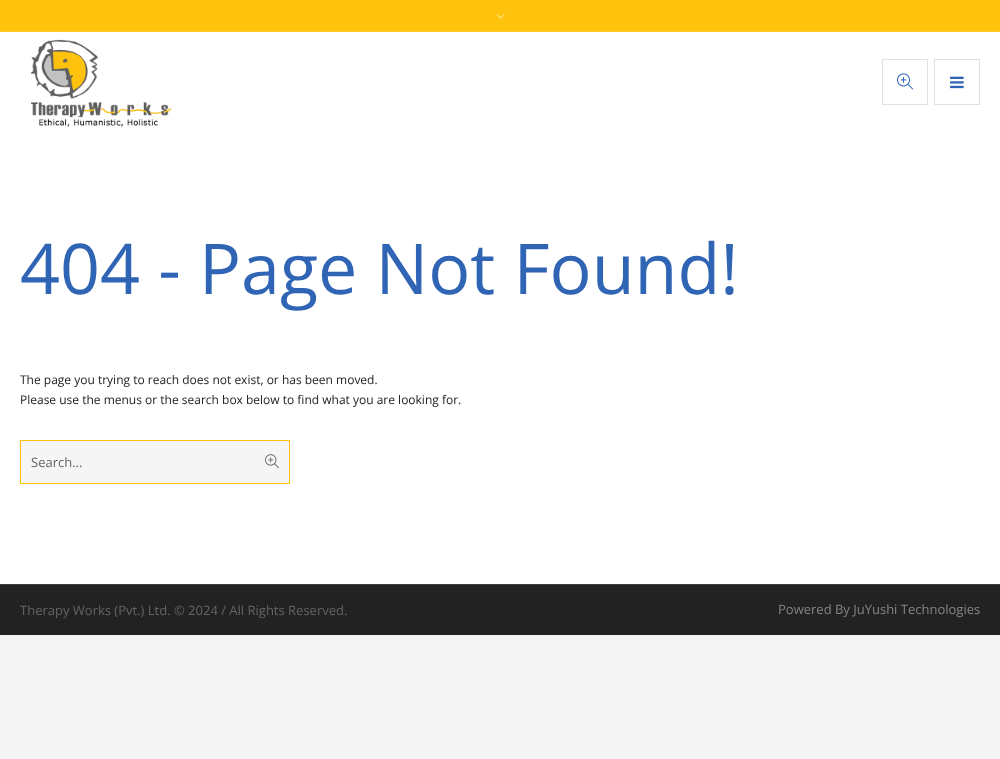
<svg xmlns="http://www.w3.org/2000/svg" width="1000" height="759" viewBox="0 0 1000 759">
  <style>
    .t1 { font: 70px Open Sans; fill: #3065b5; }
    .t2 { font: 12px Open Sans; fill: #222; }
    .t3 { font: 13px Open Sans; fill: #646464; }
    .t4 { font: 13px Open Sans; fill: #858585; }
  </style>
  <rect width="100%" height="100%" fill="#f5f5f5"/>
  <rect x="0" y="0" width="1000" height="31" fill="#ffc20d"/>
  <rect x="0" y="31" width="1000" height="1" fill="#ffc825"/>
  <image x="496" y="14" width="9" height="5" href="images/1.png"/>
  <rect x="0" y="32" width="1000" height="552" fill="#fff"/>
  <image x="31" y="39" width="141" height="89" href="images/2.png"/>
  <rect x="882.5" y="59.5" width="45" height="45" fill="none" stroke="#e0e0e0"/>
  <image x="897" y="73" width="16" height="17" href="images/3.png"/>
  <rect x="934.5" y="59.5" width="45" height="45" fill="none" stroke="#e0e0e0"/>
  <image x="950" y="76" width="14" height="13" href="images/4.png"/>
  <text x="20" y="294" class="t1">404 - Page Not Found!</text>
  <text x="20" y="384" class="t2">The page you trying to reach does not exist, or has been moved.</text>
  <text x="20" y="404" class="t2">Please use the menus or the search box below to find what you are looking for.</text>
  <rect x="20.5" y="440.5" width="269" height="43" fill="#f5f5f5" stroke="#ffc20d"/>
  <text x="31" y="467" class="t3">Search...</text>
  <image x="265" y="454" width="14" height="15" href="images/5.png"/>
  <rect x="0" y="585" width="1000" height="50" fill="#222"/>
  <rect x="0" y="584" width="1000" height="1" fill="#3d3d3d"/>
  <text x="20" y="615" class="t3">Therapy Works (Pvt.) Ltd. © 2024 / All Rights Reserved.</text>
  <text x="778" y="614" class="t4">Powered By JuYushi Technologies</text>
</svg>
